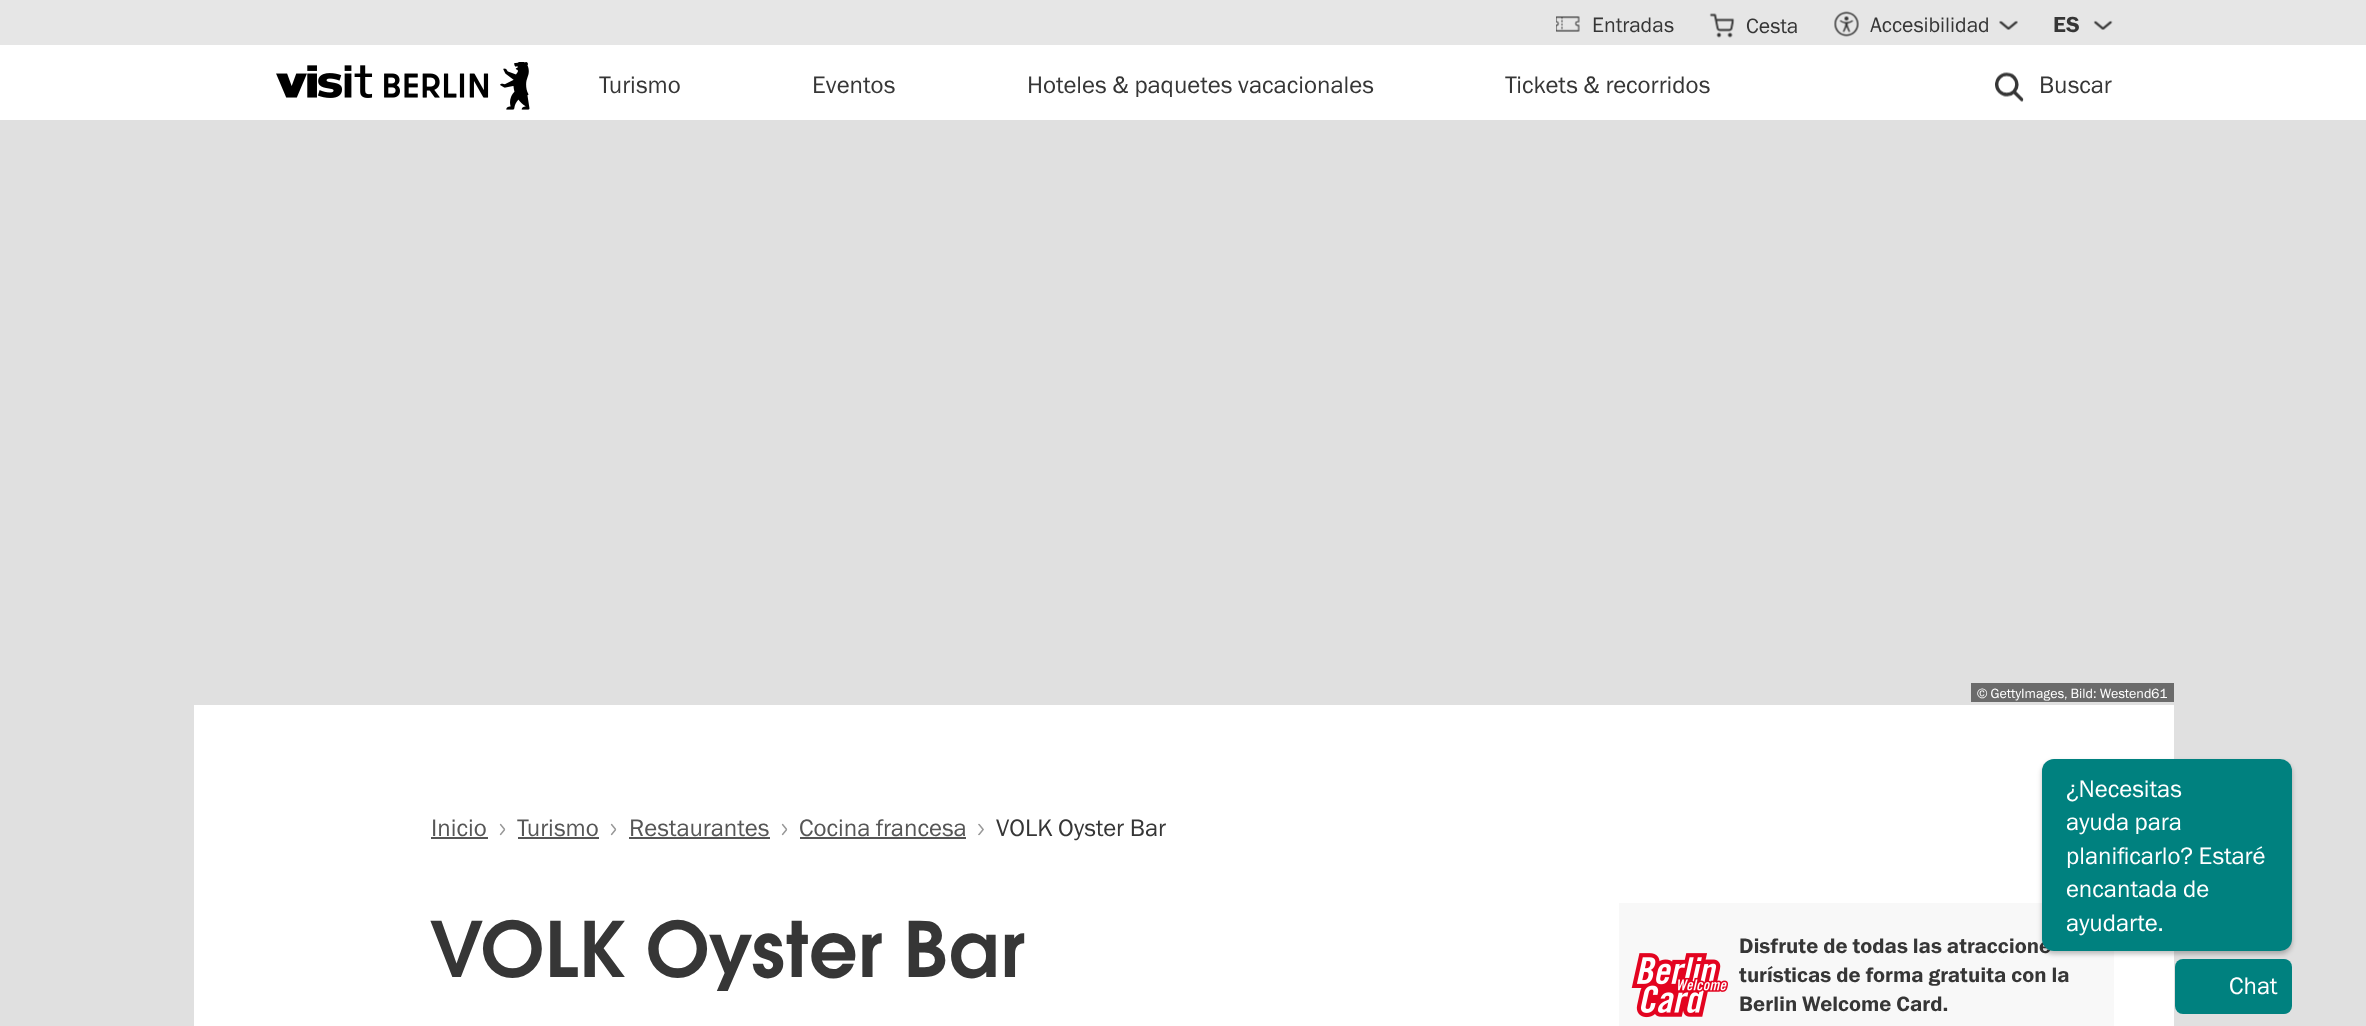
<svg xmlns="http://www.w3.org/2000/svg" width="2366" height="1026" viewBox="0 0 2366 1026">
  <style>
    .t1 { font: 21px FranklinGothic; fill: #363636; }
    .t2 { font: 22px 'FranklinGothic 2'; fill: #363636; }
    .t3 { font: 24px FranklinGothic; fill: #363636; }
    .t4 { font: 13.5px FranklinGothic; fill: #fff; }
    .t5 { font: 24px FranklinGothic; fill: #565656; }
    .t6 { font: 600 84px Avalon; fill: #363636; }
    .t7 { font: 21px 'FranklinGothic 2'; fill: #363636; }
    .t8 { font: 24px FranklinGothic; fill: #fff; }
  </style>
  <rect width="100%" height="100%" fill="#e0e0e0"/>
  <rect x="0" y="45" width="2366" height="75" fill="#fff"/>
  <rect x="0" y="0" width="2366" height="45" fill="#e6e6e6"/>
  <image x="1556" y="16" width="24" height="16" href="images/1.png"/>
  <text x="1592" y="32" class="t1">Entradas</text>
  <image x="1709" y="13" width="26" height="25" href="images/2.png"/>
  <text x="1746" y="33" class="t1">Cesta</text>
  <image x="1834" y="11" width="25" height="26" href="images/3.png"/>
  <text x="1870" y="32" class="t1">Accesibilidad</text>
  <image x="1999" y="20" width="19" height="10" href="images/4.png"/>
  <text x="2053" y="32" class="t2">ES</text>
  <image x="2093" y="20" width="20" height="10" href="images/5.png"/>
  <image x="276" y="62" width="254" height="48" href="images/6.png"/>
  <text x="599" y="93" class="t3">Turismo</text>
  <text x="812" y="93" class="t3">Eventos</text>
  <text x="1027" y="93" class="t3">Hoteles &amp; paquetes vacacionales</text>
  <text x="1505" y="93" class="t3">Tickets &amp; recorridos</text>
  <image x="1995" y="72" width="29" height="30" href="images/7.png"/>
  <text x="2039" y="93" class="t3">Buscar</text>
  <rect x="1971" y="683" width="203" height="19" fill="#6b6b6b"/>
  <text x="1977" y="698" class="t4">© GettyImages, Bild: Westend61</text>
  <rect x="194" y="705" width="1980" height="321" fill="#fff"/>
  <text x="431" y="836" class="t5">Inicio</text>
  <rect x="431" y="837" width="57" height="2" fill="#565656"/>
  <image x="499" y="823" width="7" height="13" href="images/8.png"/>
  <text x="517" y="836" class="t5">Turismo</text>
  <rect x="518" y="837" width="81" height="2" fill="#565656"/>
  <image x="610" y="823" width="7" height="13" href="images/8.png"/>
  <text x="629" y="836" class="t5">Restaurantes</text>
  <rect x="629" y="837" width="141" height="2" fill="#565656"/>
  <image x="781" y="823" width="7" height="13" href="images/8.png"/>
  <text x="799" y="836" class="t5">Cocina francesa</text>
  <rect x="800" y="837" width="166" height="2" fill="#565656"/>
  <image x="978" y="823" width="6" height="13" href="images/9.png"/>
  <text x="996" y="836" class="t3">VOLK Oyster Bar</text>
  <text x="431" y="977" class="t6">VOLK Oyster Bar</text>
  <rect x="1619" y="903" width="495" height="123" fill="#f8f8f8"/>
  <image x="1631" y="953" width="97" height="65" href="images/10.png"/>
  <text x="1739" y="953" class="t7">Disfrute de todas las atraccione</text>
  <text x="1739" y="982" class="t7">turísticas de forma gratuita con la</text>
  <text x="1739" y="1011" class="t7">Berlin Welcome Card.</text>
  <rect x="2042" y="762" width="250" height="192" rx="12" fill="#00000040" filter="blur(2.5px)"/>
  <rect x="2042" y="759" width="250" height="192" rx="12" fill="#00817f"/>
  <text x="2066" y="797" class="t8">¿Necesitas</text>
  <text x="2066" y="830" class="t8">ayuda para</text>
  <text x="2066" y="864" class="t8">planificarlo? Estaré</text>
  <text x="2066" y="897" class="t8">encantada de</text>
  <text x="2066" y="931" class="t8">ayudarte.</text>
  <rect x="2175" y="959" width="117" height="55" rx="8" fill="#00817f"/>
  <text x="2229" y="994" class="t8">Chat</text>
</svg>
